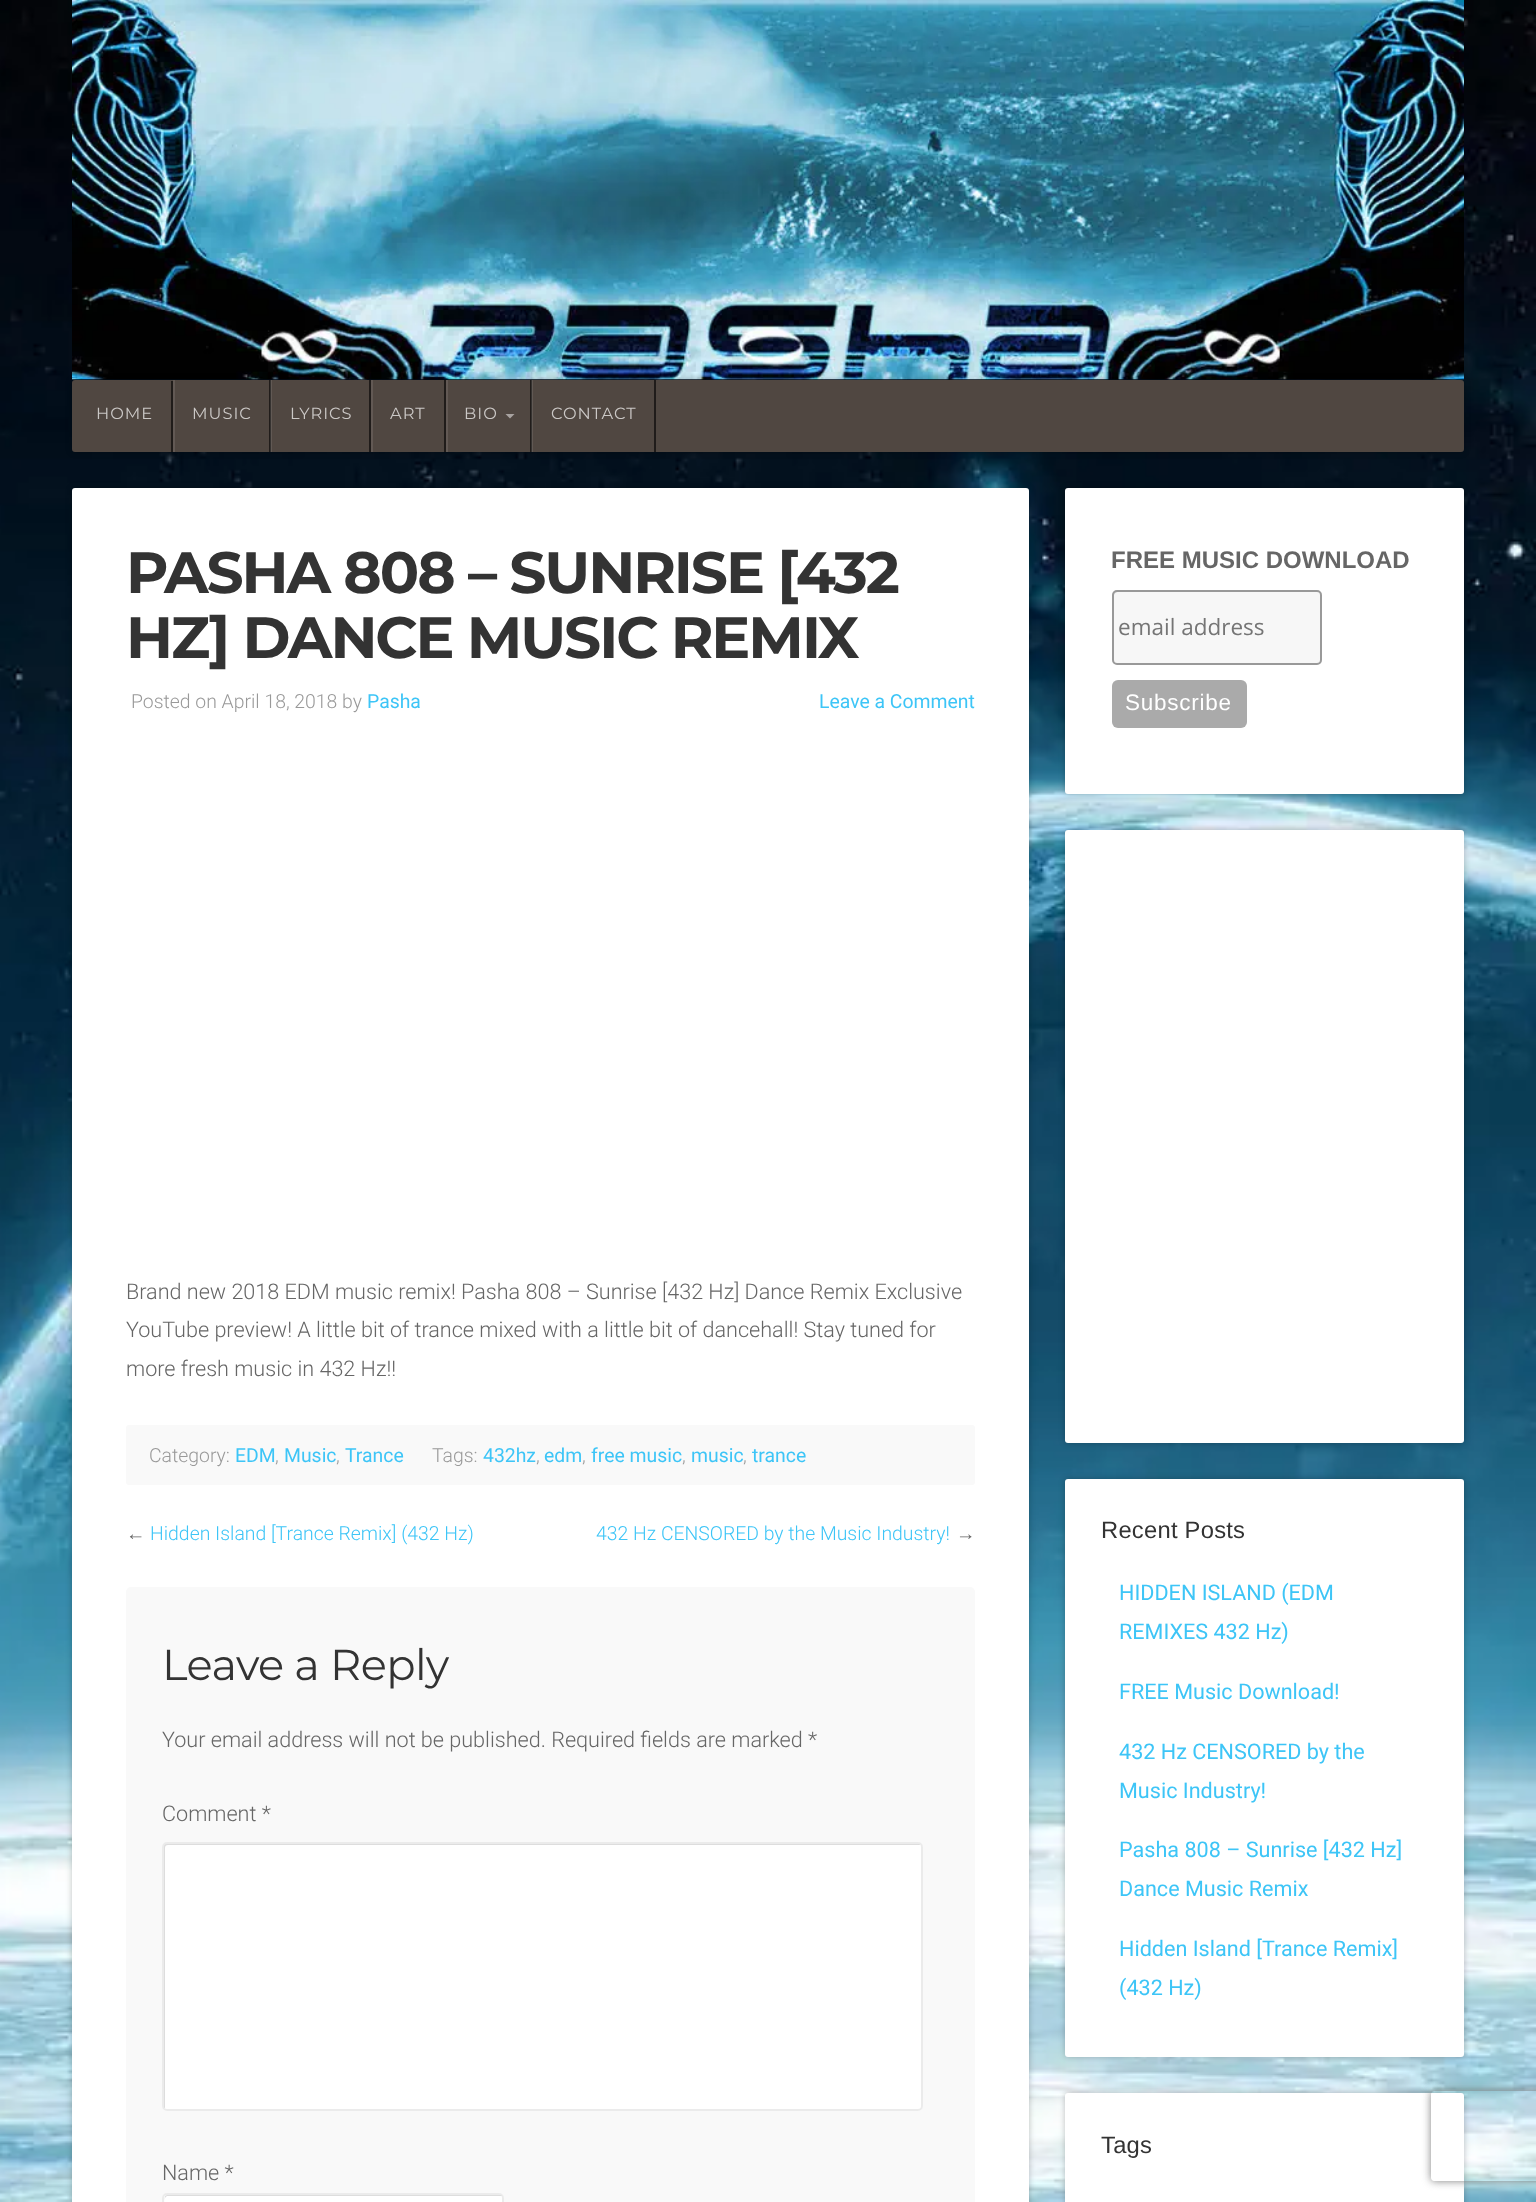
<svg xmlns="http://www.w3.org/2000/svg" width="1536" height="2202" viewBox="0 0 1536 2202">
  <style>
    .t1 { font: 16.25px Montserrat; letter-spacing: 1px; fill: #cbc8c6; }
    .t2 { font: bold 58.25px Montserrat; letter-spacing: -2.1px; fill: #333; }
    .t3 { font: 300 19.4px Roboto; fill: #999; }
    .t4 { font: 19.4px Roboto; fill: #3dc5f7; }
    .t5 { font: 300 21.6px Roboto; fill: #666; }
    .t6 { font: 19.4px Liberation Sans; fill: #666; }
    .t7 { font: 300 19.4px Roboto; fill: #3dc5f7; }
    .t8 { font: 43.25px Montserrat; letter-spacing: -0.6px; fill: #333; }
    .t9 { font: bold 24px Liberation Sans; fill: #666; }
    .t10 { font: 22.5px Open Sans; fill: #757575; }
    .t11 { font: 22.5px Liberation Sans; letter-spacing: 0.75px; fill: #fff; }
    .t12 { font: 23.75px Liberation Sans; letter-spacing: 0.25px; fill: #333; }
    .t13 { font: 21.6px Roboto; fill: #3dc5f7; }
  </style>
  <defs>
    <clipPath id="clip1"><path d="M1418 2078H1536V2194H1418ZM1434 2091H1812C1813.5 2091 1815 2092.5 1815 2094V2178C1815 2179.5 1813.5 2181 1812 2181H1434C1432.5 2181 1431 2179.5 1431 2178V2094C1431 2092.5 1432.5 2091 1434 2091Z" clip-rule="evenodd"/></clipPath>
  </defs>
  <rect width="100%" height="100%" fill="#fff"/>
  <image x="0" y="0" width="1536" height="2202" href="images/1.png"/>
  <image x="72" y="0" width="1392" height="380" href="images/2.png"/>
  <rect x="72" y="380" width="1392" height="72" rx="3" fill="#0000003d" filter="blur(3px)"/>
  <rect x="72" y="380" width="1392" height="72" rx="3" fill="#504741"/>
  <rect x="171" y="381" width="2" height="71" fill="#201c1a"/>
  <text x="96" y="419" class="t1">HOME</text>
  <rect x="269" y="380" width="2" height="72" fill="#201c1a"/>
  <rect x="173" y="380" width="2" height="72" fill="#625954"/>
  <text x="192" y="419" class="t1">MUSIC</text>
  <rect x="369" y="380" width="2" height="72" fill="#201c1a"/>
  <rect x="270" y="380" width="2" height="72" fill="#ffffff1a"/>
  <text x="290" y="419" class="t1">LYRICS</text>
  <rect x="444" y="380" width="2" height="72" fill="#201c1a"/>
  <rect x="371" y="380" width="2" height="72" fill="#625954"/>
  <text x="390" y="419" class="t1">ART</text>
  <rect x="530" y="380" width="2" height="72" fill="#201c1a"/>
  <rect x="446" y="380" width="2" height="72" fill="#625954"/>
  <text x="464" y="419" class="t1">BIO</text>
  <path d="M505.5 414H514.5L510 418.5Z" fill="#a8a3a0"/>
  <rect x="654" y="380" width="2" height="72" fill="#201c1a"/>
  <rect x="531" y="380" width="2" height="72" fill="#ffffff1a"/>
  <text x="551" y="419" class="t1">CONTACT</text>
  <rect x="72" y="488" width="957" height="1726" rx="3" fill="#0000003d" filter="blur(3px)"/>
  <rect x="72" y="488" width="957" height="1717" rx="3" fill="#fff"/>
  <text x="126" y="593" class="t2">PASHA 808 – SUNRISE [432</text>
  <text x="126" y="658" class="t2">HZ] DANCE MUSIC REMIX</text>
  <text x="131" y="708" class="t3">Posted on April 18, 2018 by</text>
  <text x="367" y="708" class="t4">Pasha</text>
  <text x="819" y="708" class="t4">Leave a Comment</text>
  <text x="126" y="1299" class="t5">Brand new 2018 EDM music remix! Pasha 808 – Sunrise [432 Hz] Dance Remix Exclusive</text>
  <text x="126" y="1337" class="t5">YouTube preview! A little bit of trance mixed with a little bit of dancehall! Stay tuned for</text>
  <text x="126" y="1376" class="t5">more fresh music in 432 Hz!!</text>
  <rect x="126" y="1425" width="849" height="60" rx="3" fill="#f9f9f9"/>
  <text x="149" y="1462" class="t3">Category:</text>
  <text x="235" y="1462" class="t4">EDM</text>
  <text x="275" y="1462" class="t3">,</text>
  <text x="284" y="1462" class="t4">Music</text>
  <text x="336" y="1462" class="t3">,</text>
  <text x="345" y="1462" class="t4">Trance</text>
  <text x="432" y="1462" class="t3">Tags:</text>
  <text x="483" y="1462" class="t4">432hz</text>
  <text x="536" y="1462" class="t3">,</text>
  <text x="544" y="1462" class="t4">edm</text>
  <text x="582" y="1462" class="t3">,</text>
  <text x="591" y="1462" class="t4">free music</text>
  <text x="682" y="1462" class="t3">,</text>
  <text x="691" y="1462" class="t4">music</text>
  <text x="743" y="1462" class="t3">,</text>
  <text x="752" y="1462" class="t4">trance</text>
  <text x="126" y="1540" class="t6">←</text>
  <text x="150" y="1540" class="t7">Hidden Island [Trance Remix] (432 Hz)</text>
  <text x="596" y="1540" class="t7">432 Hz CENSORED by the Music Industry!</text>
  <text x="956" y="1540" class="t6">→</text>
  <rect x="126" y="1587" width="849" height="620" rx="5" fill="#f9f9f9"/>
  <text x="162" y="1680" class="t8">Leave a Reply</text>
  <text x="162" y="1747" class="t5">Your email address will not be published. Required fields are marked *</text>
  <text x="162" y="1821" class="t5">Comment *</text>
  <rect x="162" y="1842" width="761" height="269" rx="5" fill="#fff"/>
  <path d="M168 1845H920C920 1844 919 1844 918 1844H167C165 1844 164 1845 164 1847V2106C164 2107 164 2108 165 2108V1848C165 1846 166 1845 168 1845Z" fill="#ddd"/>
  <rect x="163" y="1843" width="759" height="267" rx="4" fill="none" stroke="#00000014" stroke-width="2"/>
  <text x="162" y="2180" class="t5">Name *</text>
  <rect x="162" y="2193" width="342" height="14" rx="5" fill="#fff"/>
  <path d="M168 2196H502L500 2195H167L165 2196C164 2198 164 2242 164 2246L165 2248V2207C165 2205 163 2196 168 2196Z" fill="#ddd"/>
  <rect x="163" y="2194" width="340" height="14" rx="4" fill="none" stroke="#00000014" stroke-width="2"/>
  <rect x="1065" y="488" width="399" height="306" rx="3" fill="#0000003d" filter="blur(3px)"/>
  <rect x="1065" y="488" width="399" height="306" rx="3" fill="#fff"/>
  <text x="1111" y="568" class="t9">FREE MUSIC DOWNLOAD</text>
  <rect x="1112" y="590" width="210" height="75" rx="5" fill="#f7f7f7"/>
  <path d="M1118 592H1318H1320C1319 592 1318 591 1317 591H1116C1114 591 1113 592 1113 594V660C1113 661 1113 662 1114 662V607C1114 606 1111 592 1118 592Z" fill="#d9d9d9"/>
  <rect x="1113" y="591" width="208" height="73" rx="4" fill="none" stroke="#999" stroke-width="2"/>
  <text x="1118" y="635" class="t10">email address</text>
  <rect x="1112" y="680" width="135" height="48" rx="6" fill="#aaa"/>
  <text x="1125" y="710" class="t11">Subscribe</text>
  <rect x="1065" y="830" width="399" height="613" rx="3" fill="#0000003d" filter="blur(3px)"/>
  <rect x="1065" y="830" width="399" height="613" rx="3" fill="#fff"/>
  <rect x="1065" y="1479" width="399" height="578" rx="3" fill="#0000003d" filter="blur(3px)"/>
  <rect x="1065" y="1479" width="399" height="578" rx="3" fill="#fff"/>
  <text x="1101" y="1538" class="t12">Recent Posts</text>
  <text x="1119" y="1600" class="t13">HIDDEN ISLAND (EDM</text>
  <text x="1119" y="1639" class="t13">REMIXES 432 Hz)</text>
  <text x="1119" y="1699" class="t13">FREE Music Download!</text>
  <text x="1119" y="1759" class="t13">432 Hz CENSORED by the</text>
  <text x="1119" y="1798" class="t13">Music Industry!</text>
  <text x="1119" y="1857" class="t13">Pasha 808 – Sunrise [432 Hz]</text>
  <text x="1119" y="1896" class="t13">Dance Music Remix</text>
  <text x="1119" y="1956" class="t13">Hidden Island [Trance Remix]</text>
  <text x="1119" y="1995" class="t13">(432 Hz)</text>
  <rect x="1065" y="2093" width="399" height="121" rx="3" fill="#0000003d" filter="blur(3px)"/>
  <rect x="1065" y="2093" width="399" height="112" rx="3" fill="#fff"/>
  <text x="1101" y="2153" class="t12">Tags</text>
  <g clip-path="url(#clip1)">
    <rect x="1431" y="2091" width="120" height="90" rx="3" fill="#808080" filter="blur(4px)"/>
  </g>
</svg>
